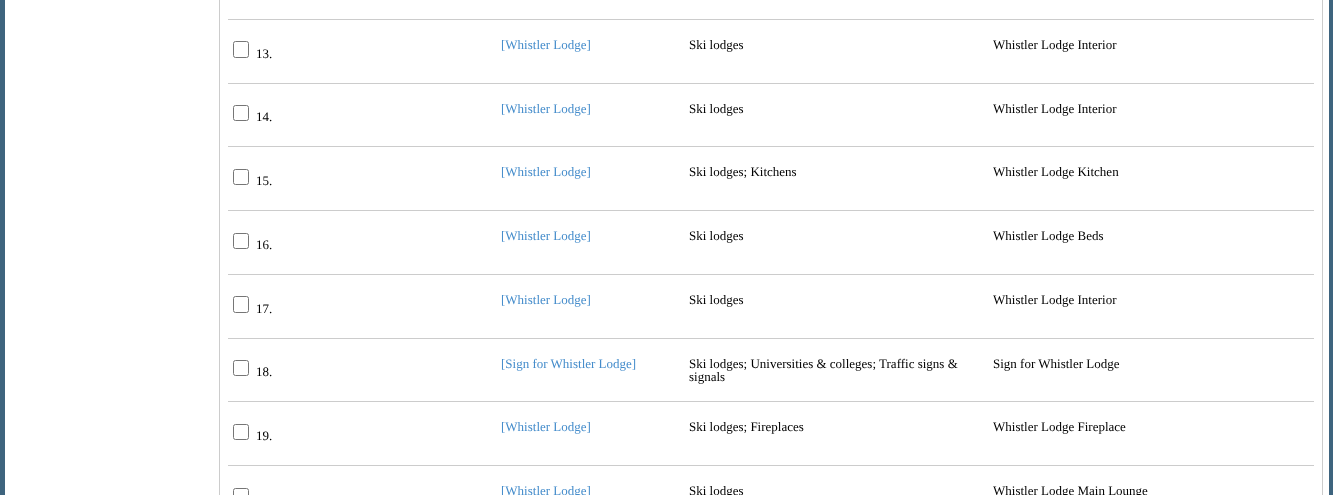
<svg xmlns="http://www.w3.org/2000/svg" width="1333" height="495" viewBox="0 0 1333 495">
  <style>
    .t1 { font: 13px Liberation Serif; fill: #448ccb; }
    .t2 { font: 13px Liberation Serif; fill: #000; }
  </style>
  <rect width="100%" height="100%" fill="#fff"/>
  <rect x="0" y="0" width="5" height="495" fill="#3e647e"/>
  <rect x="1329" y="0" width="4" height="495" fill="#3e647e"/>
  <rect x="219.5" y="-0.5" width="1103" height="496" fill="none" stroke="#ccc"/>
  <rect x="228" y="19" width="1086" height="1" fill="#ccc"/>
  <text x="501" y="49" class="t1">[Whistler Lodge]</text>
  <text x="689" y="49" class="t2">Ski lodges</text>
  <text x="993" y="49" class="t2">Whistler Lodge Interior</text>
  <rect x="233.5" y="41.5" width="15" height="16" rx="2" fill="none" stroke="#767676"/>
  <text x="256" y="58" class="t2">13.</text>
  <rect x="228" y="83" width="1086" height="1" fill="#ccc"/>
  <text x="501" y="113" class="t1">[Whistler Lodge]</text>
  <text x="689" y="113" class="t2">Ski lodges</text>
  <text x="993" y="113" class="t2">Whistler Lodge Interior</text>
  <rect x="233.5" y="105.5" width="15" height="15" rx="2" fill="none" stroke="#767676"/>
  <text x="256" y="121" class="t2">14.</text>
  <rect x="228" y="146" width="1086" height="1" fill="#ccc"/>
  <text x="501" y="176" class="t1">[Whistler Lodge]</text>
  <text x="689" y="176" class="t2">Ski lodges; Kitchens</text>
  <text x="993" y="176" class="t2">Whistler Lodge Kitchen</text>
  <rect x="233.5" y="169.5" width="15" height="15" rx="2" fill="none" stroke="#767676"/>
  <text x="256" y="185" class="t2">15.</text>
  <rect x="228" y="210" width="1086" height="1" fill="#ccc"/>
  <text x="501" y="240" class="t1">[Whistler Lodge]</text>
  <text x="689" y="240" class="t2">Ski lodges</text>
  <text x="993" y="240" class="t2">Whistler Lodge Beds</text>
  <rect x="233.5" y="233.5" width="15" height="15" rx="2" fill="none" stroke="#767676"/>
  <text x="256" y="249" class="t2">16.</text>
  <rect x="228" y="274" width="1086" height="1" fill="#ccc"/>
  <text x="501" y="304" class="t1">[Whistler Lodge]</text>
  <text x="689" y="304" class="t2">Ski lodges</text>
  <text x="993" y="304" class="t2">Whistler Lodge Interior</text>
  <rect x="233.5" y="296.5" width="15" height="16" rx="2" fill="none" stroke="#767676"/>
  <text x="256" y="313" class="t2">17.</text>
  <rect x="228" y="338" width="1086" height="1" fill="#ccc"/>
  <text x="501" y="368" class="t1">[Sign for Whistler Lodge]</text>
  <text x="689" y="368" class="t2">Ski lodges; Universities &amp; colleges; Traffic signs &amp;</text>
  <text x="689" y="381" class="t2">signals</text>
  <text x="993" y="368" class="t2">Sign for Whistler Lodge</text>
  <rect x="233.5" y="360.5" width="15" height="15" rx="2" fill="none" stroke="#767676"/>
  <text x="256" y="376" class="t2">18.</text>
  <rect x="228" y="401" width="1086" height="1" fill="#ccc"/>
  <text x="501" y="431" class="t1">[Whistler Lodge]</text>
  <text x="689" y="431" class="t2">Ski lodges; Fireplaces</text>
  <text x="993" y="431" class="t2">Whistler Lodge Fireplace</text>
  <rect x="233.5" y="424.5" width="15" height="15" rx="2" fill="none" stroke="#767676"/>
  <text x="256" y="440" class="t2">19.</text>
  <rect x="228" y="465" width="1086" height="1" fill="#ccc"/>
  <rect x="233.5" y="488.5" width="15" height="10" rx="2" fill="none" stroke="#767676"/>
  <text x="501" y="495" class="t1">[Whistler Lodge]</text>
  <text x="689" y="495" class="t2">Ski lodges</text>
  <text x="993" y="495" class="t2">Whistler Lodge Main Lounge</text>
</svg>
